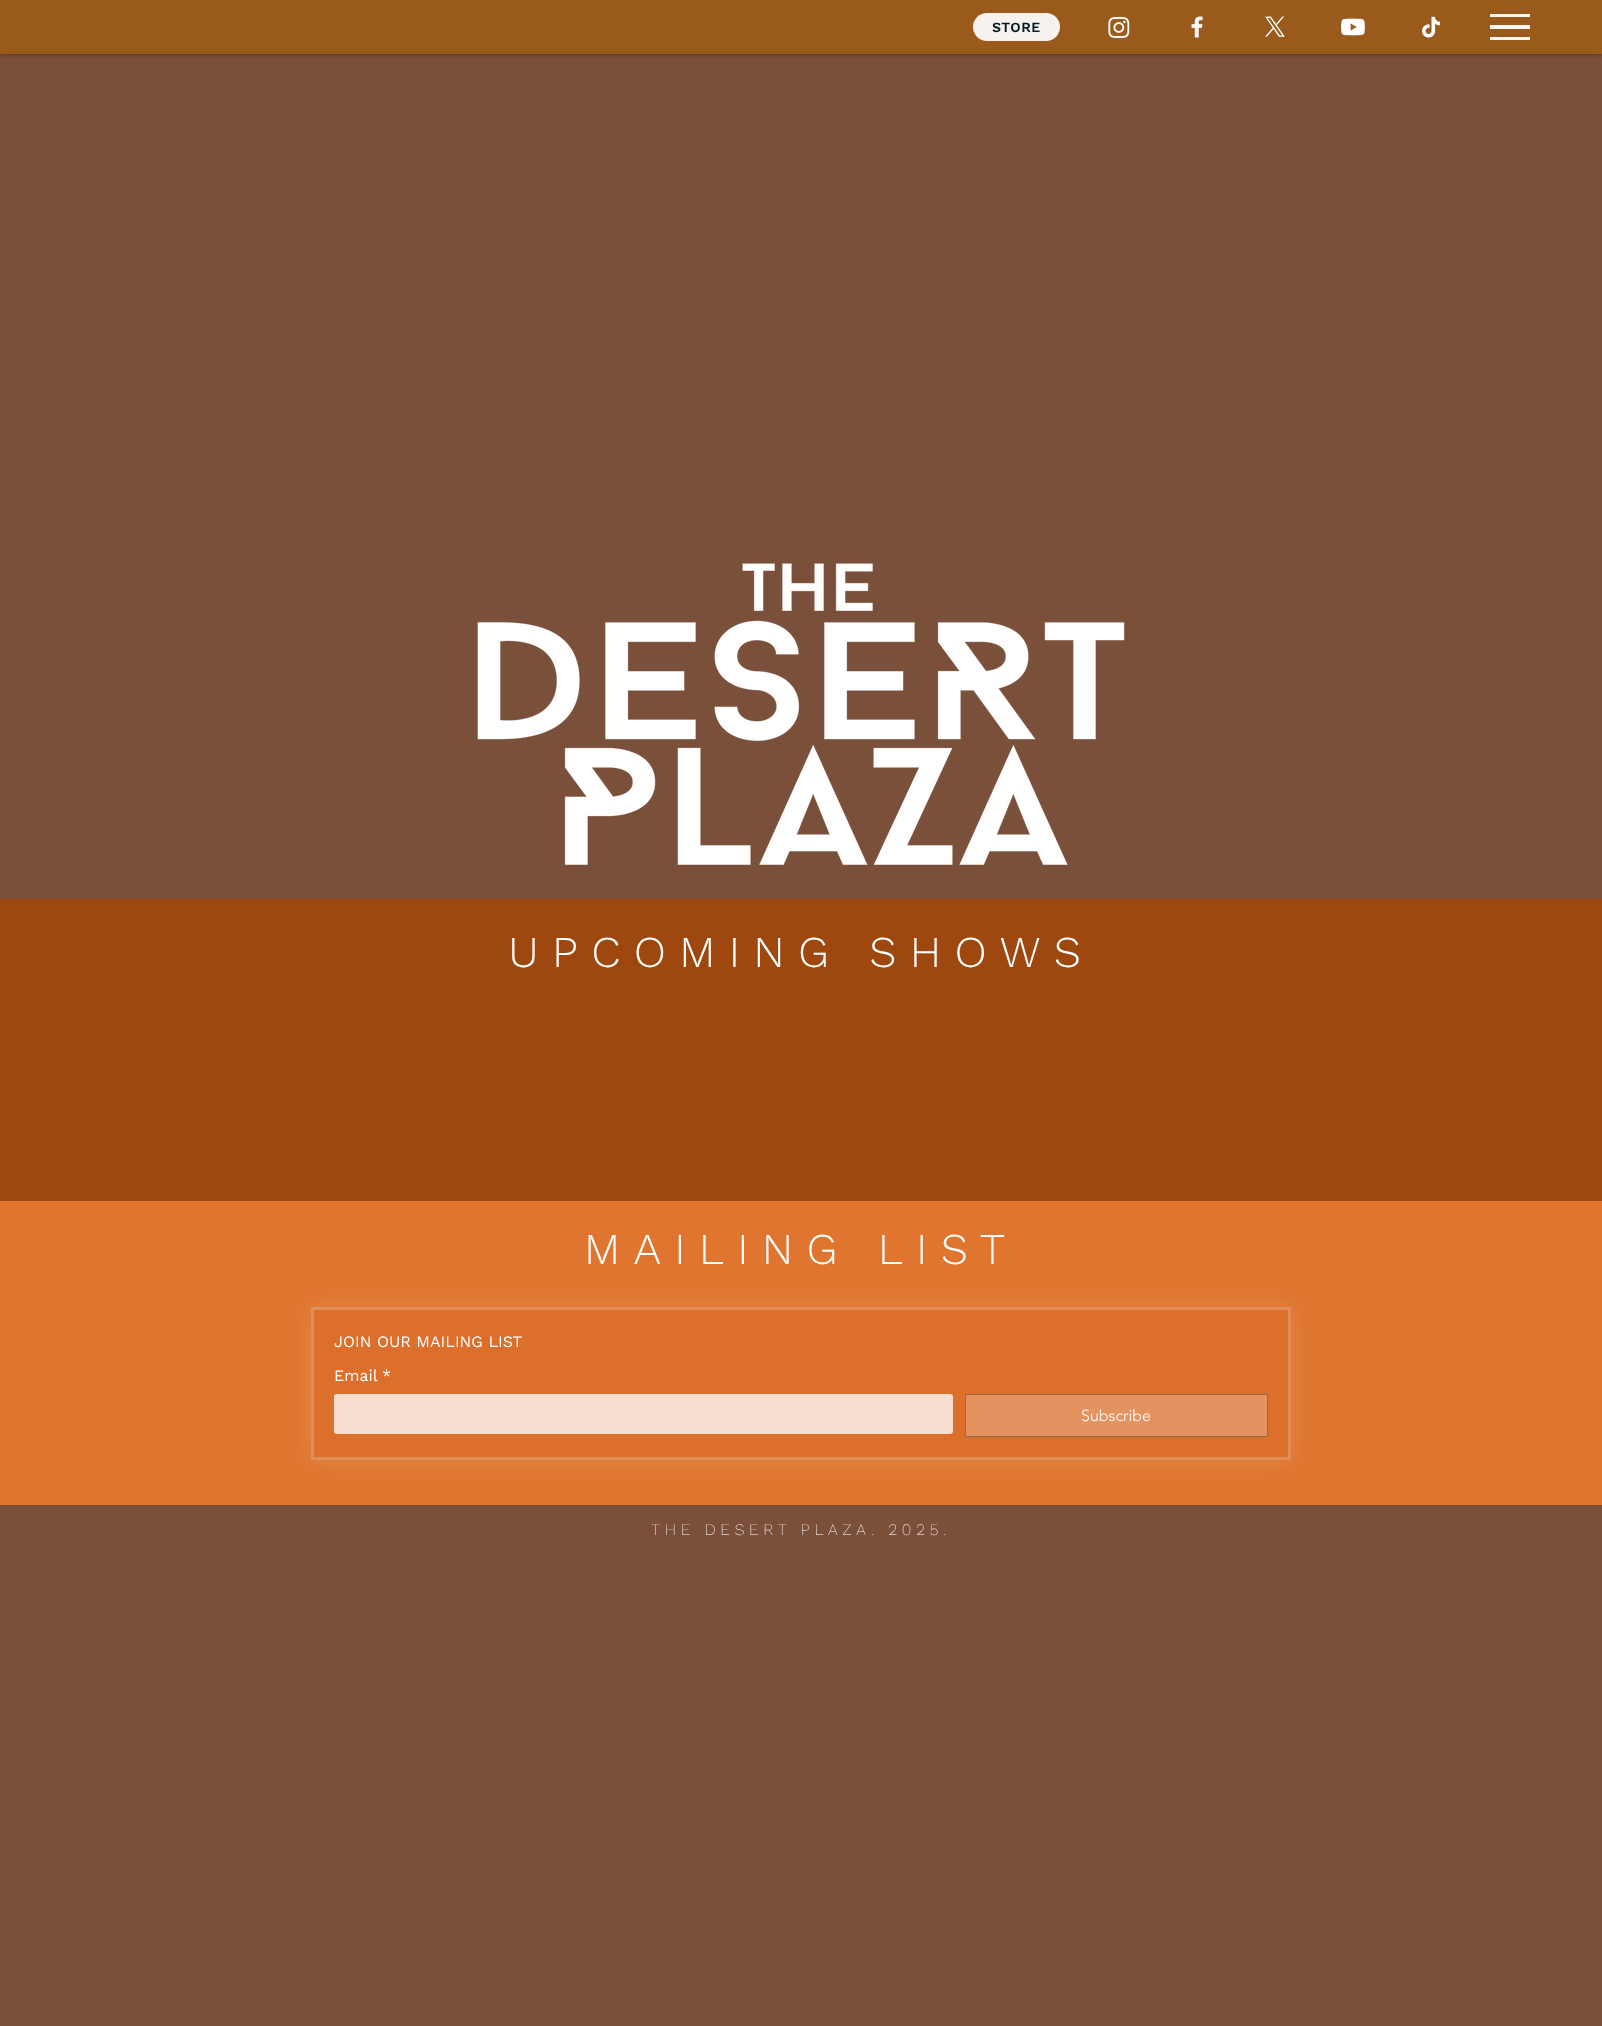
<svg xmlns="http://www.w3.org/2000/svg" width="1602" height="2026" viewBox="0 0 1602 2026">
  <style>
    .t1 { font: 600 14px Work Sans; letter-spacing: 0.5px; fill: #031b23; }
    .t2 { font: 300 44px Work Sans; letter-spacing: 13.25px; fill: #fff; }
    .t3 { font: 16px Work Sans; fill: #fff; }
    .t4 { font: 300 16px 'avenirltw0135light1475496'; fill: #fff; }
    .t5 { font: 200 16px Work Sans; letter-spacing: 4.8px; fill: #fff; }
  </style>
  <rect width="100%" height="100%" fill="#7b503b"/>
  <rect x="0" y="0" width="1602" height="54" fill="#00000080" filter="blur(2.5px)"/>
  <rect x="0" y="0" width="1602" height="54" fill="#9a5a1c"/>
  <rect x="973" y="13" width="87" height="28" rx="14" fill="#f7f2ed"/>
  <text x="992" y="32" class="t1">STORE</text>
  <image x="1108" y="16" width="22" height="23" href="images/1.png"/>
  <image x="1191" y="16" width="12" height="22" href="images/2.png"/>
  <image x="1265" y="16" width="20" height="21" href="images/3.png"/>
  <image x="1341" y="18" width="24" height="18" href="images/4.png"/>
  <image x="1421" y="16" width="20" height="22" href="images/5.png"/>
  <rect x="1490" y="37" width="40" height="3" fill="#f9f5f1"/>
  <rect x="1490" y="14" width="40" height="3" fill="#f9f5f1"/>
  <rect x="1490" y="25" width="40" height="4" fill="#f9f5f1"/>
  <image x="477" y="563" width="648" height="302" href="images/6.png"/>
  <rect x="0" y="899" width="1602" height="302" fill="#9e480f"/>
  <text x="508" y="967" class="t2">UPCOMING SHOWS</text>
  <rect x="0" y="1201" width="1602" height="304" fill="#df752f"/>
  <text x="584" y="1264" class="t2">MAILING LIST</text>
  <rect x="311" y="1307" width="980" height="153" rx="1" fill="#ffffff26" filter="blur(12.5px)"/>
  <rect x="314" y="1310" width="974" height="147" fill="#db6f2b"/>
  <path d="M312.5 1308.5H1289.5V1458.5H312.5Z" fill="none" stroke="#e38d58" stroke-width="3"/>
  <text x="334" y="1347" class="t3">JOIN OUR MAILING LIST</text>
  <text x="334" y="1381" class="t3">Email</text>
  <text x="382" y="1381" class="t3">*</text>
  <rect x="334" y="1394" width="619" height="40" rx="3" fill="#f7dfd0"/>
  <rect x="965" y="1394" width="303" height="43" rx="1" fill="#e49360"/>
  <rect x="965.5" y="1394.5" width="302" height="42" rx="0.5" fill="none" stroke="#031b2359"/>
  <text x="1081" y="1421" class="t4">Subscribe</text>
  <text x="651" y="1535" class="t5">THE DESERT PLAZA. 2025.</text>
</svg>
